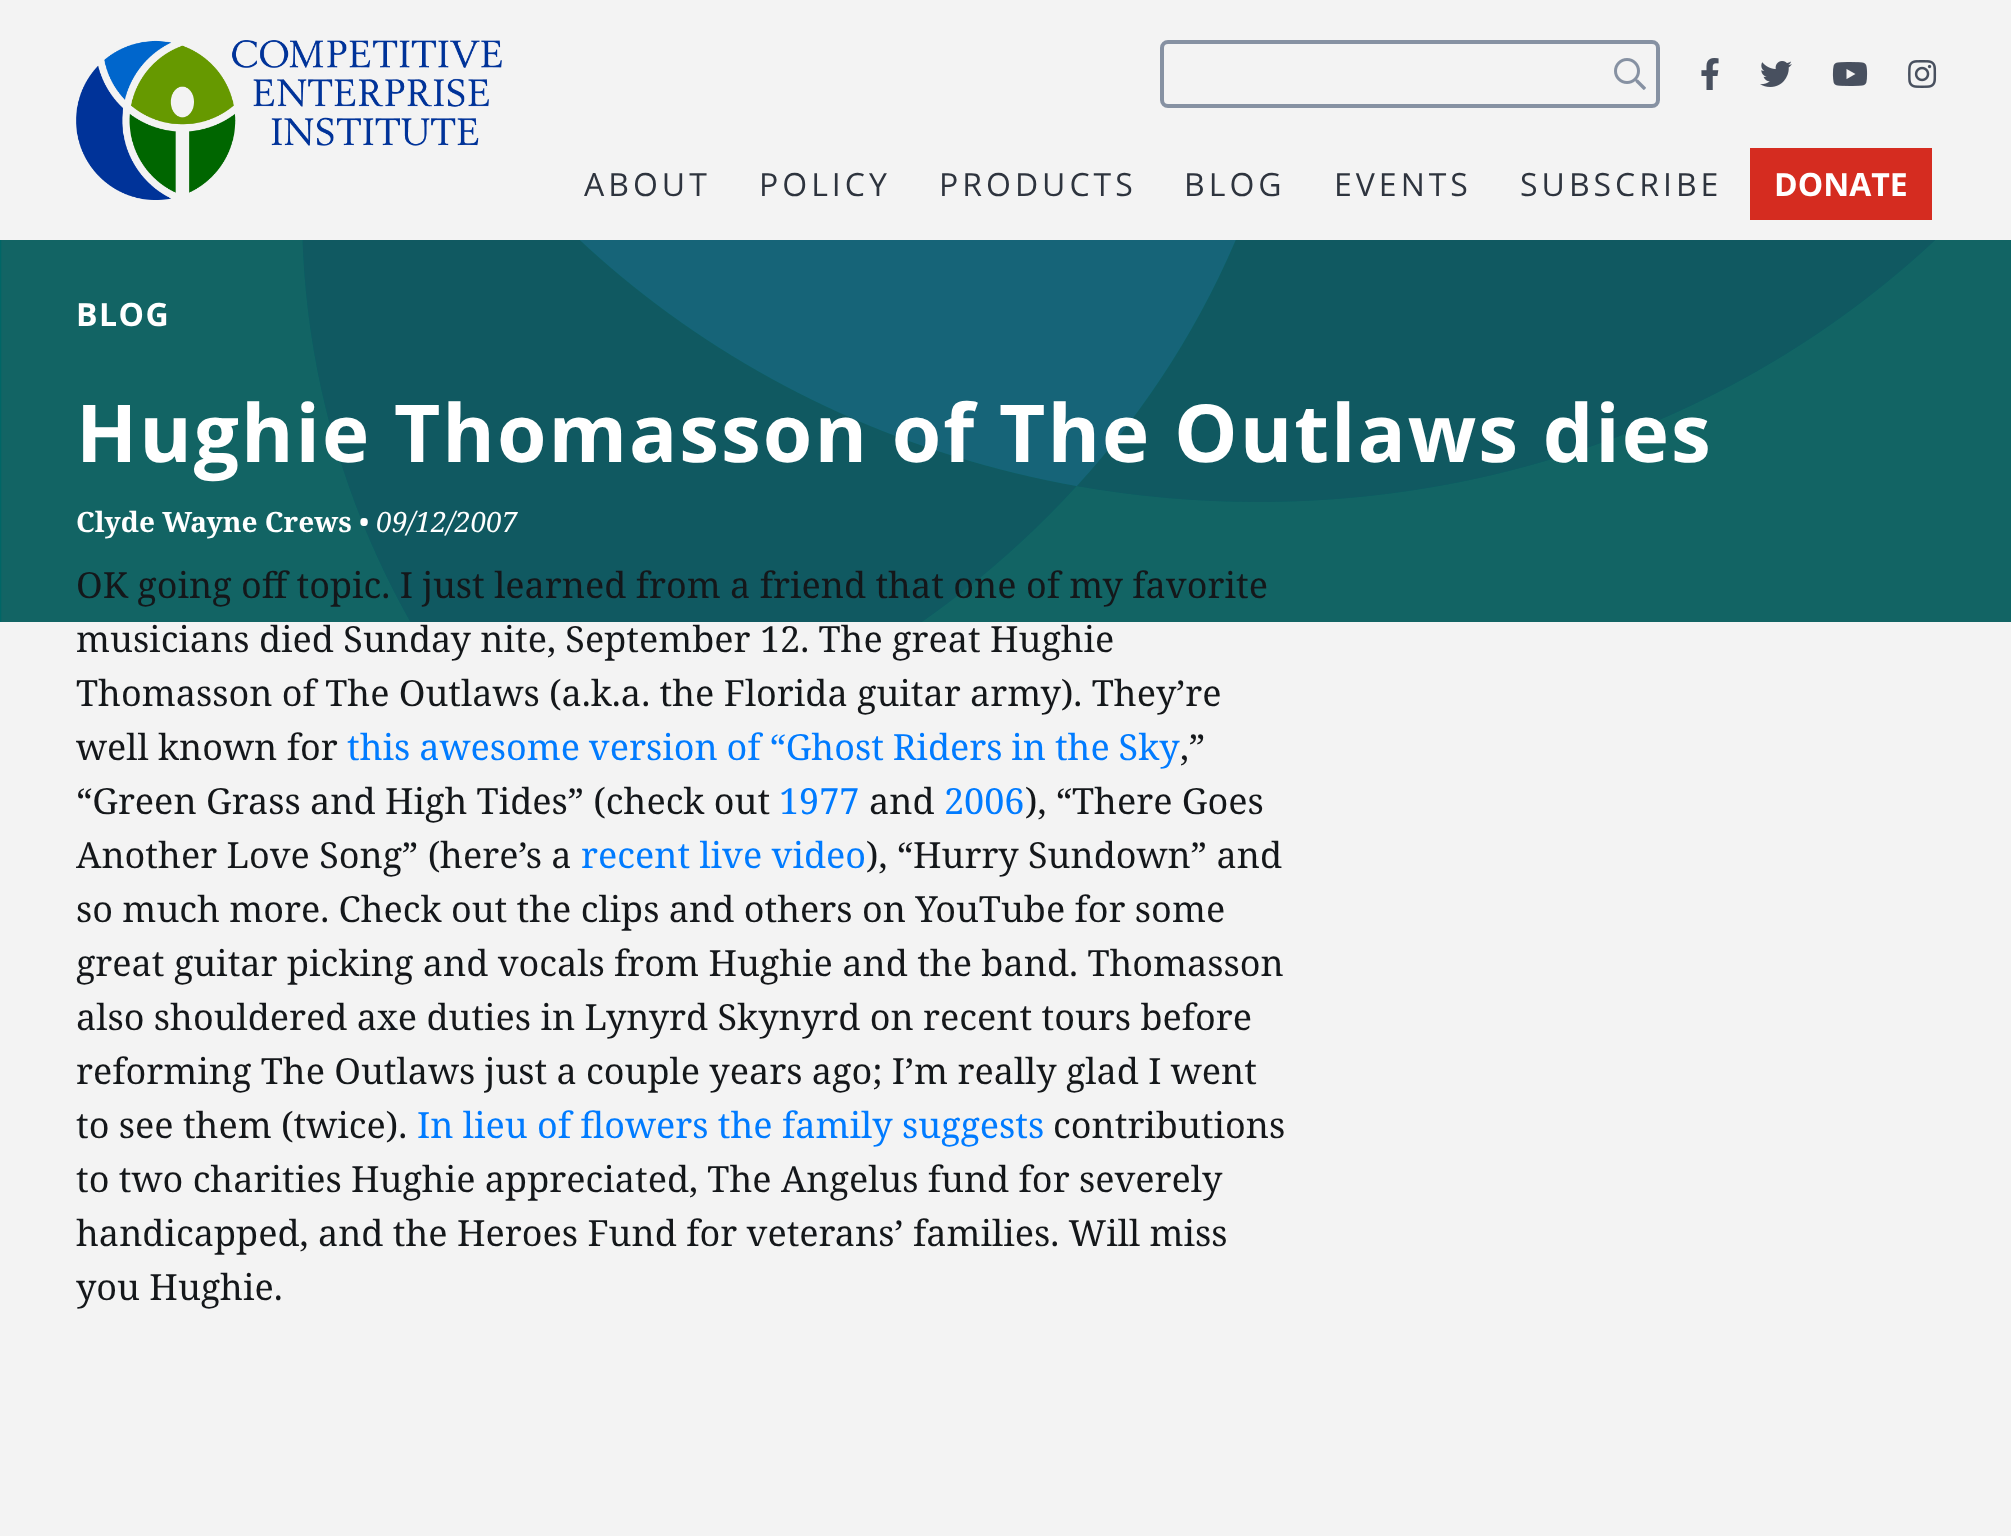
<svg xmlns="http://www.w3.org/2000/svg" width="2011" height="1536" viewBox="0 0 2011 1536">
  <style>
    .t1 { font: 32px Open Sans; letter-spacing: 4px; fill: #2e343e; }
    .t2 { font: bold 32px Open Sans; fill: #fff; }
    .t3 { font: bold 32px Open Sans; letter-spacing: 1.5px; fill: #fff; }
    .t4 { font: bold 28px Noto Serif; fill: #fff; }
    .t5 { font: 28px Noto Serif; fill: #fff; }
    .t6 { font: italic 28px Noto Serif; fill: #fff; }
    .t7 { font: bold 80px Open Sans; letter-spacing: 2px; fill: #fff; }
    .t8 { font: 36px Noto Serif; fill: #14171a; }
    .t9 { font: 36px Noto Serif; fill: #007bff; }
  </style>
  <rect width="100%" height="100%" fill="#f3f3f3"/>
  <image x="76" y="40" width="426" height="160" href="images/1.png"/>
  <rect x="1162" y="42" width="496" height="64" rx="6" fill="none" stroke="#8691a2" stroke-width="4"/>
  <image x="1614" y="58" width="32" height="32" href="images/2.png"/>
  <image x="1701" y="58" width="18" height="32" href="images/3.png"/>
  <image x="1760" y="61" width="32" height="26" href="images/4.png"/>
  <image x="1832" y="62" width="36" height="24" href="images/5.png"/>
  <image x="1908" y="60" width="29" height="28" href="images/6.png"/>
  <text x="584" y="196" class="t1">ABOUT</text>
  <text x="759" y="196" class="t1">POLICY</text>
  <text x="939" y="196" class="t1">PRODUCTS</text>
  <text x="1184" y="196" class="t1">BLOG</text>
  <text x="1334" y="196" class="t1">EVENTS</text>
  <text x="1520" y="196" class="t1">SUBSCRIBE</text>
  <rect x="1750" y="148" width="182" height="72" fill="#d52c20"/>
  <text x="1774" y="196" class="t2">DONATE</text>
  <rect x="0" y="240" width="2011" height="382" fill="#066"/>
  <image x="1" y="240" width="2010" height="382" href="images/7.png"/>
  <text x="76" y="326" class="t3">BLOG</text>
  <text x="76" y="532" class="t4">Clyde Wayne Crews</text>
  <text x="359" y="532" class="t5">•</text>
  <text x="376" y="532" class="t6">09/12/2007</text>
  <text x="76" y="462" class="t7">Hughie Thomasson of The Outlaws dies</text>
  <text x="76" y="598" class="t8">OK going off topic. I just learned from a friend that one of my favorite</text>
  <text x="76" y="652" class="t8">musicians died Sunday nite, September 12. The great Hughie</text>
  <text x="76" y="706" class="t8">Thomasson of The Outlaws (a.k.a. the Florida guitar army). They’re</text>
  <text x="76" y="760" class="t8">well known for</text>
  <text x="347" y="760" word-spacing="-0.5" class="t9">this awesome version of “Ghost Riders in the Sky</text>
  <text x="1180" y="760" class="t8">,”</text>
  <text x="76" y="814" class="t8">“Green Grass and High Tides” (check out</text>
  <text x="779" y="814" class="t9">1977</text>
  <text x="869" y="814" class="t8">and</text>
  <text x="944" y="814" class="t9">2006</text>
  <text x="1025" y="814" class="t8">), “There Goes</text>
  <text x="76" y="868" class="t8">Another Love Song” (here’s a</text>
  <text x="581" y="868" class="t9">recent live video</text>
  <text x="866" y="868" class="t8">), “Hurry Sundown” and</text>
  <text x="76" y="922" class="t8">so much more. Check out the clips and others on YouTube for some</text>
  <text x="76" y="976" class="t8">great guitar picking and vocals from Hughie and the band. Thomasson</text>
  <text x="76" y="1030" class="t8">also shouldered axe duties in Lynyrd Skynyrd on recent tours before</text>
  <text x="76" y="1084" class="t8">reforming The Outlaws just a couple years ago; I’m really glad I went</text>
  <text x="76" y="1138" class="t8">to see them (twice).</text>
  <text x="417" y="1138" class="t9">In lieu of flowers the family suggests</text>
  <text x="1053" y="1138" class="t8">contributions</text>
  <text x="76" y="1192" class="t8">to two charities Hughie appreciated, The Angelus fund for severely</text>
  <text x="76" y="1246" class="t8">handicapped, and the Heroes Fund for veterans’ families. Will miss</text>
  <text x="76" y="1300" class="t8">you Hughie.</text>
</svg>
